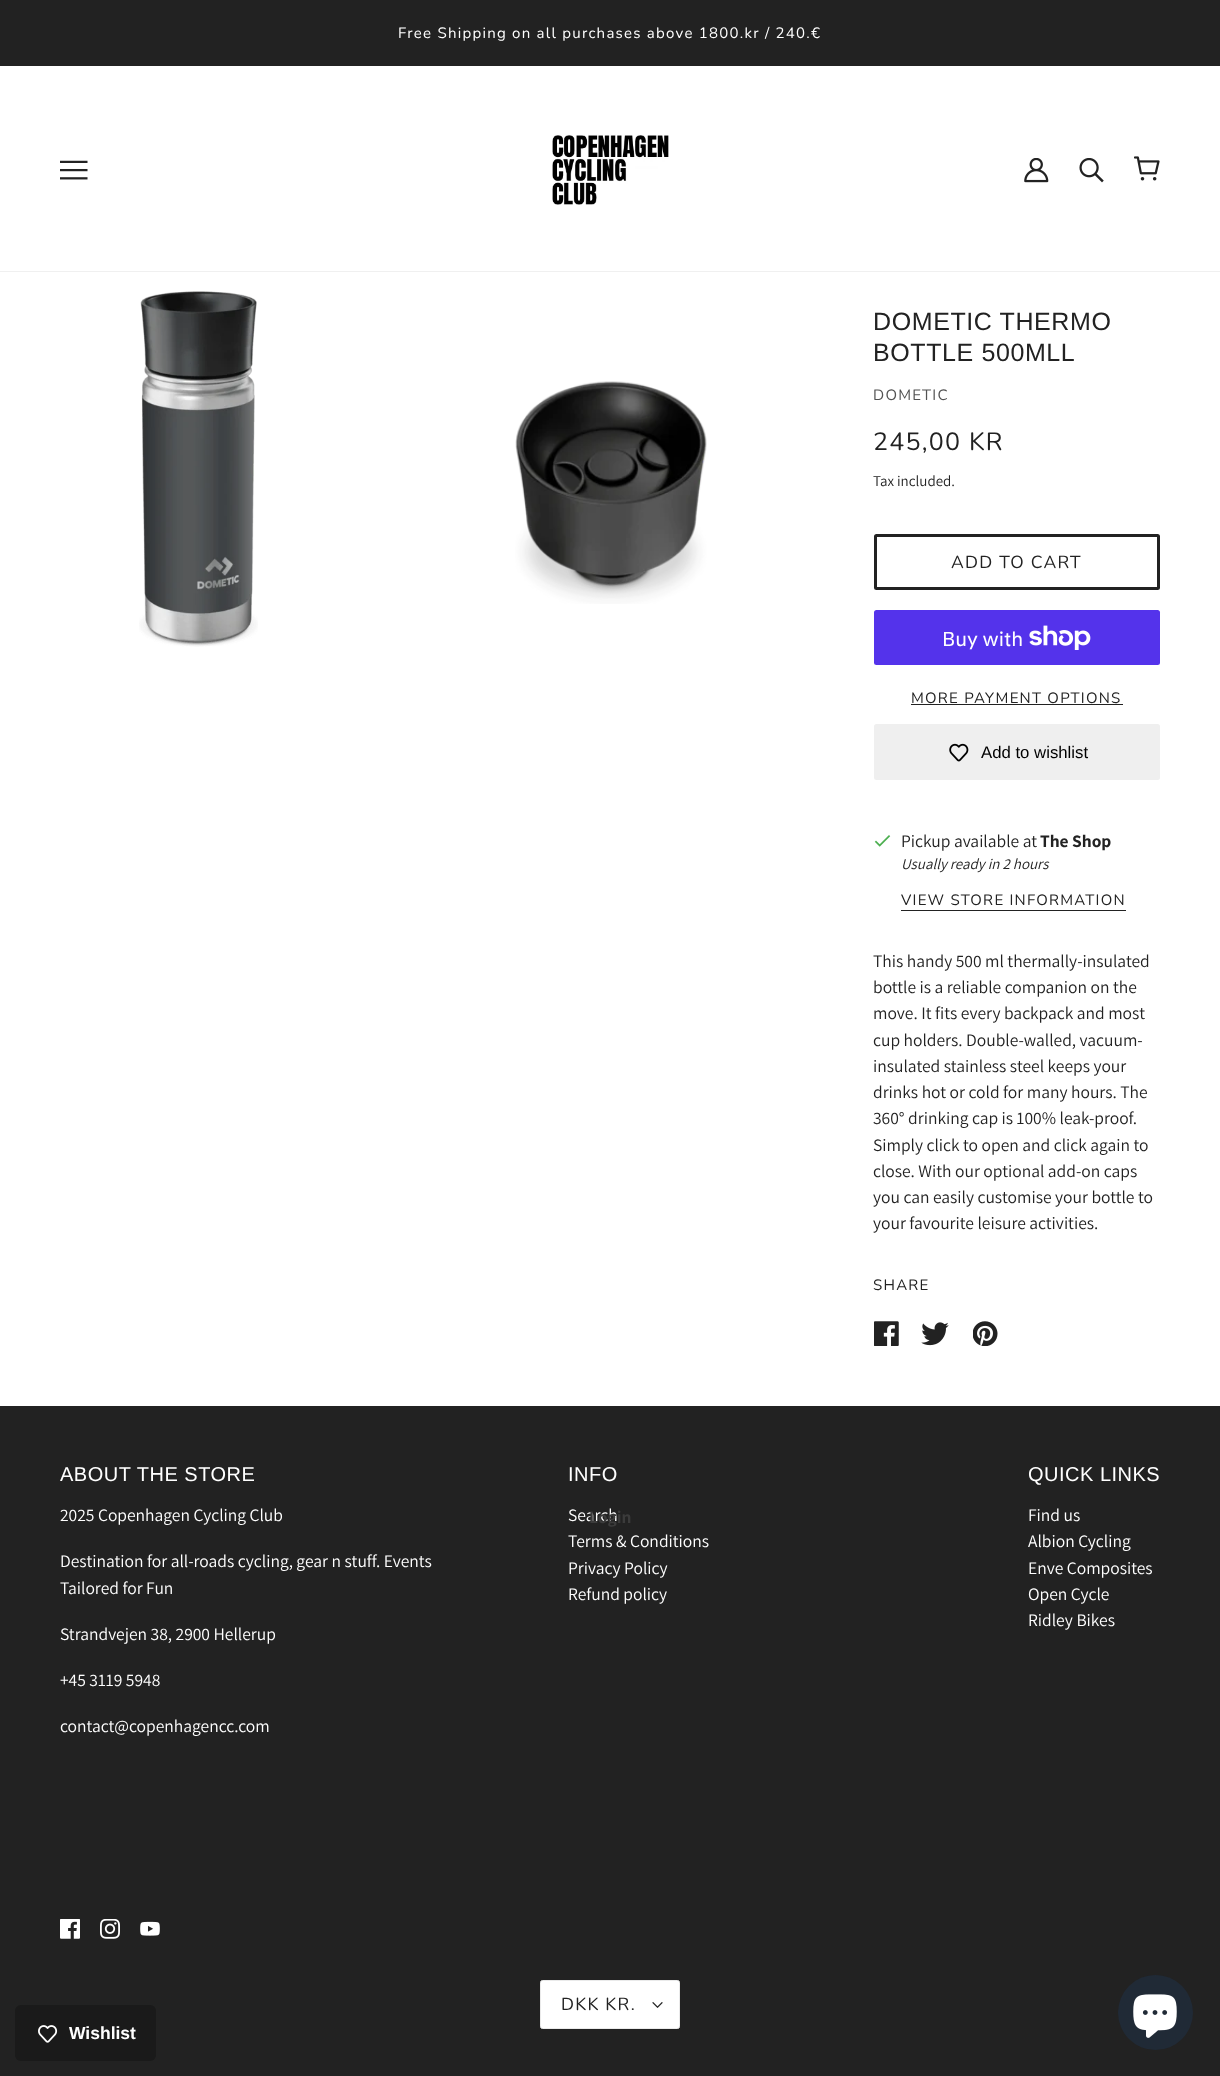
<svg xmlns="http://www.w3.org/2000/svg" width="1220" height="2076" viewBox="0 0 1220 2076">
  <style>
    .t1 { font: 15px Nunito; letter-spacing: 1.25px; fill: #fff; }
    .t2 { font: 25px Arimo; letter-spacing: 0.6px; fill: #222; }
    .t3 { font: 15px Nunito; letter-spacing: 1.25px; fill: #525252; }
    .t4 { font: 25px Nunito; letter-spacing: 1.25px; fill: #222; }
    .t5 { font: 15px Assistant; fill: #222; }
    .t6 { font: 17.5px Nunito; letter-spacing: 1.25px; fill: #222; }
    .t7 { font: 20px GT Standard; fill: #fff; }
    .t8 { font: 15px Nunito; letter-spacing: 1.25px; fill: #222; }
    .t9 { font: 16.75px Liberation Sans; fill: #000; }
    .t10 { font: 17.5px Assistant; fill: #222; }
    .t11 { font: bold 17.5px Assistant; fill: #222; }
    .t12 { font: italic 15px Assistant; fill: #222; }
    .t13 { font: 20px Arimo; letter-spacing: 0.5px; fill: #fff; }
    .t14 { font: 17.5px Assistant; fill: #fff; }
    .t15 { font: bold 17.5px Assistant; fill: #3b3b3b; }
    .t16 { font: bold 17.5px Liberation Sans; fill: #fff; }
  </style>
  <rect width="100%" height="100%" fill="#fff"/>
  <rect x="0" y="0" width="1220" height="66" fill="#222"/>
  <text x="398" y="38" class="t1">Free Shipping on all purchases above 1800.kr / 240.€</text>
  <rect x="0" y="271" width="1220" height="1" fill="#f0f0f0"/>
  <image x="60" y="160" width="28" height="20" href="images/1.png"/>
  <image x="552" y="134" width="117" height="71" href="images/2.png"/>
  <image x="1024" y="158" width="25" height="25" href="images/3.png"/>
  <image x="1079" y="158" width="25" height="25" href="images/4.png"/>
  <image x="1134" y="156" width="26" height="25" href="images/5.png"/>
  <image x="139" y="291" width="119" height="356" href="images/6.png"/>
  <image x="515" y="381" width="192" height="223" href="images/7.png"/>
  <text x="873" y="330" class="t2">DOMETIC THERMO</text>
  <text x="873" y="361" class="t2">BOTTLE 500MLL</text>
  <text x="873" y="400" class="t3">DOMETIC</text>
  <text x="873" y="450" class="t4">245,00 KR</text>
  <text x="873" y="486" class="t5">Tax included.</text>
  <rect x="875.5" y="535.5" width="283" height="53" rx="1" fill="none" stroke="#222" stroke-width="3"/>
  <text x="951" y="568" class="t6">ADD TO CART</text>
  <rect x="874" y="610" width="286" height="55" rx="2.5" fill="#5433eb"/>
  <text x="942" y="646" class="t7">Buy with</text>
  <image x="1029" y="625" width="62" height="25" href="images/8.png"/>
  <text x="911" y="703" class="t8">MORE PAYMENT OPTIONS</text>
  <rect x="911" y="704" width="212" height="1" fill="#222"/>
  <rect x="874" y="724" width="286" height="56" rx="2.5" fill="#efefef"/>
  <image x="949" y="743" width="20" height="19" href="images/9.png"/>
  <text x="981" y="758" class="t9">Add to wishlist</text>
  <image x="874" y="835" width="17" height="12" href="images/10.png"/>
  <text x="901" y="847" class="t10">Pickup available at</text>
  <text x="1040" y="847" class="t11">The Shop</text>
  <text x="901" y="869" class="t12">Usually ready in 2 hours</text>
  <text x="901" y="905" class="t8">VIEW STORE INFORMATION</text>
  <rect x="901" y="910" width="225" height="1" fill="#222"/>
  <text x="873" y="967" class="t10">This handy 500 ml thermally-insulated</text>
  <text x="873" y="993" class="t10">bottle is a reliable companion on the</text>
  <text x="873" y="1019" class="t10">move. It fits every backpack and most</text>
  <text x="873" y="1046" class="t10">cup holders. Double-walled, vacuum-</text>
  <text x="873" y="1072" class="t10">insulated stainless steel keeps your</text>
  <text x="873" y="1098" class="t10">drinks hot or cold for many hours. The</text>
  <text x="873" y="1124" class="t10">360° drinking cap is 100% leak-proof.</text>
  <text x="873" y="1151" class="t10">Simply click to open and click again to</text>
  <text x="873" y="1177" class="t10">close. With our optional add-on caps</text>
  <text x="873" y="1203" class="t10">you can easily customise your bottle to</text>
  <text x="873" y="1229" class="t10">your favourite leisure activities.</text>
  <text x="873" y="1290" class="t8">SHARE</text>
  <image x="874" y="1321" width="25" height="25" href="images/11.png"/>
  <image x="921" y="1322" width="28" height="24" href="images/12.png"/>
  <image x="973" y="1321" width="25" height="25" href="images/13.png"/>
  <rect x="0" y="1406" width="1220" height="670" fill="#222"/>
  <text x="60" y="1481" class="t13">ABOUT THE STORE</text>
  <text x="60" y="1521" class="t14">2025 Copenhagen Cycling Club</text>
  <text x="60" y="1567" class="t14">Destination for all-roads cycling, gear n stuff. Events</text>
  <text x="60" y="1594" class="t14">Tailored for Fun</text>
  <text x="60" y="1640" class="t14">Strandvejen 38, 2900 Hellerup</text>
  <text x="60" y="1686" class="t14">+45 3119 5948</text>
  <text x="60" y="1732" class="t14">contact@copenhagencc.com</text>
  <image x="60" y="1919" width="20" height="20" href="images/14.png"/>
  <image x="100" y="1919" width="20" height="20" href="images/15.png"/>
  <image x="140" y="1921" width="20" height="15" href="images/16.png"/>
  <text x="568" y="1481" class="t13">INFO</text>
  <text x="568" y="1521" class="t14">Search</text>
  <text x="568" y="1547" class="t14">Terms &amp; Conditions</text>
  <text x="568" y="1574" class="t14">Privacy Policy</text>
  <text x="568" y="1600" class="t14">Refund policy</text>
  <text x="1028" y="1481" class="t13">QUICK LINKS</text>
  <text x="1028" y="1521" class="t14">Find us</text>
  <text x="1028" y="1547" class="t14">Albion Cycling</text>
  <text x="1028" y="1574" class="t14">Enve Composites</text>
  <text x="1028" y="1600" class="t14">Open Cycle</text>
  <text x="1028" y="1626" class="t14">Ridley Bikes</text>
  <rect x="540.5" y="1980.5" width="139" height="48" rx="2" fill="#fff" stroke="#eaeaea"/>
  <text x="561" y="2010" class="t6">DKK KR.</text>
  <image x="652" y="2002" width="11" height="6" href="images/17.png"/>
  <text x="589" y="1523" class="t15">Login</text>
  <rect x="15" y="2005" width="141" height="56" rx="6" fill="#1a1a1a"/>
  <image x="38" y="2025" width="20" height="18" href="images/18.png"/>
  <text x="69" y="2039" class="t16">Wishlist</text>
  <circle cx="1155.5" cy="2012.5" r="37.5" fill="#202a36"/>
  <image x="1133" y="1994" width="44" height="44" href="images/19.png"/>
</svg>
